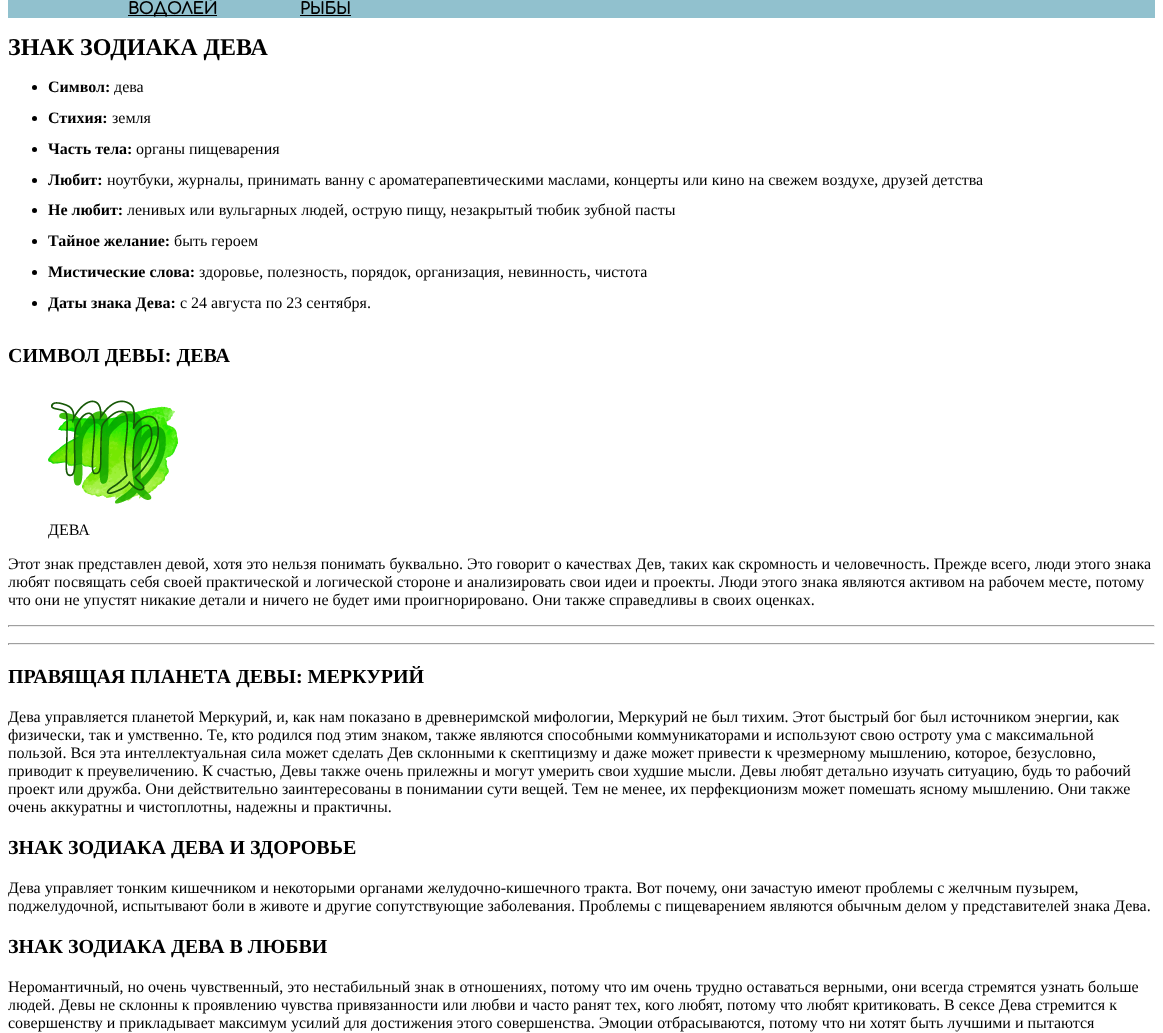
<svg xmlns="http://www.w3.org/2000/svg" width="1163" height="1033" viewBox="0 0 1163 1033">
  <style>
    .t1 { font: bold 16px Comfortaa; fill: #000; }
    .t2 { font: bold 24px Liberation Serif; fill: #000; }
    .t3 { font: bold 16px Liberation Serif; fill: #000; }
    .t4 { font: 16px Liberation Serif; fill: #000; }
    .t5 { font: bold 20px Liberation Serif; fill: #000; }
  </style>
  <rect width="100%" height="100%" fill="#fff"/>
  <rect x="8" y="0" width="1147" height="18" fill="#91c1ce"/>
  <rect x="128" y="15" width="89" height="1" fill="#000"/>
  <text x="128" y="14" class="t1">ВОДОЛЕЙ</text>
  <text x="300" y="14" class="t1">РЫБЫ</text>
  <rect x="300" y="15" width="51" height="1" fill="#000"/>
  <text x="8" y="55" class="t2">ЗНАК ЗОДИАКА ДЕВА</text>
  <circle cx="34.5" cy="87.5" r="2.5" fill="#000"/>
  <text x="48" y="92" class="t3">Символ:</text>
  <text x="114" y="92" class="t4">дева</text>
  <circle cx="34.5" cy="118.5" r="2.5" fill="#000"/>
  <text x="48" y="123" class="t3">Стихия:</text>
  <text x="112" y="123" class="t4">земля</text>
  <circle cx="34.5" cy="149.5" r="2.5" fill="#000"/>
  <text x="48" y="154" class="t3">Часть тела:</text>
  <text x="136" y="154" class="t4">органы пищеварения</text>
  <circle cx="34.5" cy="180.5" r="2.5" fill="#000"/>
  <text x="48" y="185" class="t3">Любит:</text>
  <text x="107" y="185" class="t4">ноутбуки, журналы, принимать ванну с ароматерапевтическими маслами, концерты или кино на свежем воздухе, друзей детства</text>
  <circle cx="34.5" cy="210.5" r="2.5" fill="#000"/>
  <text x="48" y="215" class="t3">Не любит:</text>
  <text x="127" y="215" class="t4">ленивых или вульгарных людей, острую пищу, незакрытый тюбик зубной пасты</text>
  <circle cx="34.5" cy="241.5" r="2.5" fill="#000"/>
  <text x="48" y="246" class="t3">Тайное желание:</text>
  <text x="174" y="246" class="t4">быть героем</text>
  <circle cx="34.5" cy="272.5" r="2.5" fill="#000"/>
  <text x="48" y="277" class="t3">Мистические слова:</text>
  <text x="199" y="277" class="t4">здоровье, полезность, порядок, организация, невинность, чистота</text>
  <circle cx="34.5" cy="303.5" r="2.5" fill="#000"/>
  <text x="48" y="308" class="t3">Даты знака Дева:</text>
  <text x="180" y="308" class="t4">с 24 августа по 23 сентября.</text>
  <text x="8" y="362" class="t5">СИМВОЛ ДЕВЫ: ДЕВА</text>
  <image x="48" y="400" width="130" height="104" href="images/1.png"/>
  <text x="48" y="535" class="t4">ДЕВА</text>
  <text x="8" y="569" class="t4">Этот знак представлен девой, хотя это нельзя понимать буквально. Это говорит о качествах Дев, таких как скромность и человечность. Прежде всего, люди этого знака</text>
  <text x="8" y="587" class="t4">любят посвящать себя своей практической и логической стороне и анализировать свои идеи и проекты. Люди этого знака являются активом на рабочем месте, потому</text>
  <text x="8" y="605" class="t4">что они не упустят никакие детали и ничего не будет ими проигнорировано. Они также справедливы в своих оценках.</text>
  <rect x="8" y="625" width="1147" height="1" fill="#9f9f9f"/>
  <rect x="1154" y="625" width="1" height="2" fill="#eee"/>
  <rect x="8" y="626" width="1147" height="1" fill="#eee"/>
  <rect x="8" y="625" width="1" height="2" fill="#9f9f9f"/>
  <rect x="8" y="643" width="1147" height="1" fill="#9f9f9f"/>
  <rect x="1154" y="643" width="1" height="2" fill="#eee"/>
  <rect x="8" y="644" width="1147" height="1" fill="#eee"/>
  <rect x="8" y="643" width="1" height="2" fill="#9f9f9f"/>
  <text x="8" y="683" class="t5">ПРАВЯЩАЯ ПЛАНЕТА ДЕВЫ: МЕРКУРИЙ</text>
  <text x="8" y="722" class="t4">Дева управляется планетой Меркурий, и, как нам показано в древнеримской мифологии, Меркурий не был тихим. Этот быстрый бог был источником энергии, как</text>
  <text x="8" y="740" class="t4">физически, так и умственно. Те, кто родился под этим знаком, также являются способными коммуникаторами и используют свою остроту ума с максимальной</text>
  <text x="8" y="758" class="t4">пользой. Вся эта интеллектуальная сила может сделать Дев склонными к скептицизму и даже может привести к чрезмерному мышлению, которое, безусловно,</text>
  <text x="8" y="776" class="t4">приводит к преувеличению. К счастью, Девы также очень прилежны и могут умерить свои худшие мысли. Девы любят детально изучать ситуацию, будь то рабочий</text>
  <text x="8" y="794" class="t4">проект или дружба. Они действительно заинтересованы в понимании сути вещей. Тем не менее, их перфекционизм может помешать ясному мышлению. Они также</text>
  <text x="8" y="812" class="t4">очень аккуратны и чистоплотны, надежны и практичны.</text>
  <text x="8" y="854" class="t5">ЗНАК ЗОДИАКА ДЕВА И ЗДОРОВЬЕ</text>
  <text x="8" y="893" class="t4">Дева управляет тонким кишечником и некоторыми органами желудочно-кишечного тракта. Вот почему, они зачастую имеют проблемы с желчным пузырем,</text>
  <text x="8" y="911" class="t4">поджелудочной, испытывают боли в животе и другие сопутствующие заболевания. Проблемы с пищеварением являются обычным делом у представителей знака Дева.</text>
  <text x="8" y="953" class="t5">ЗНАК ЗОДИАКА ДЕВА В ЛЮБВИ</text>
  <text x="8" y="992" class="t4">Неромантичный, но очень чувственный, это нестабильный знак в отношениях, потому что им очень трудно оставаться верными, они всегда стремятся узнать больше</text>
  <text x="8" y="1010" class="t4">людей. Девы не склонны к проявлению чувства привязанности или любви и часто ранят тех, кого любят, потому что любят критиковать. В сексе Дева стремится к</text>
  <text x="8" y="1028" class="t4">совершенству и прикладывает максимум усилий для достижения этого совершенства. Эмоции отбрасываются, потому что ни хотят быть лучшими и пытаются</text>
</svg>
